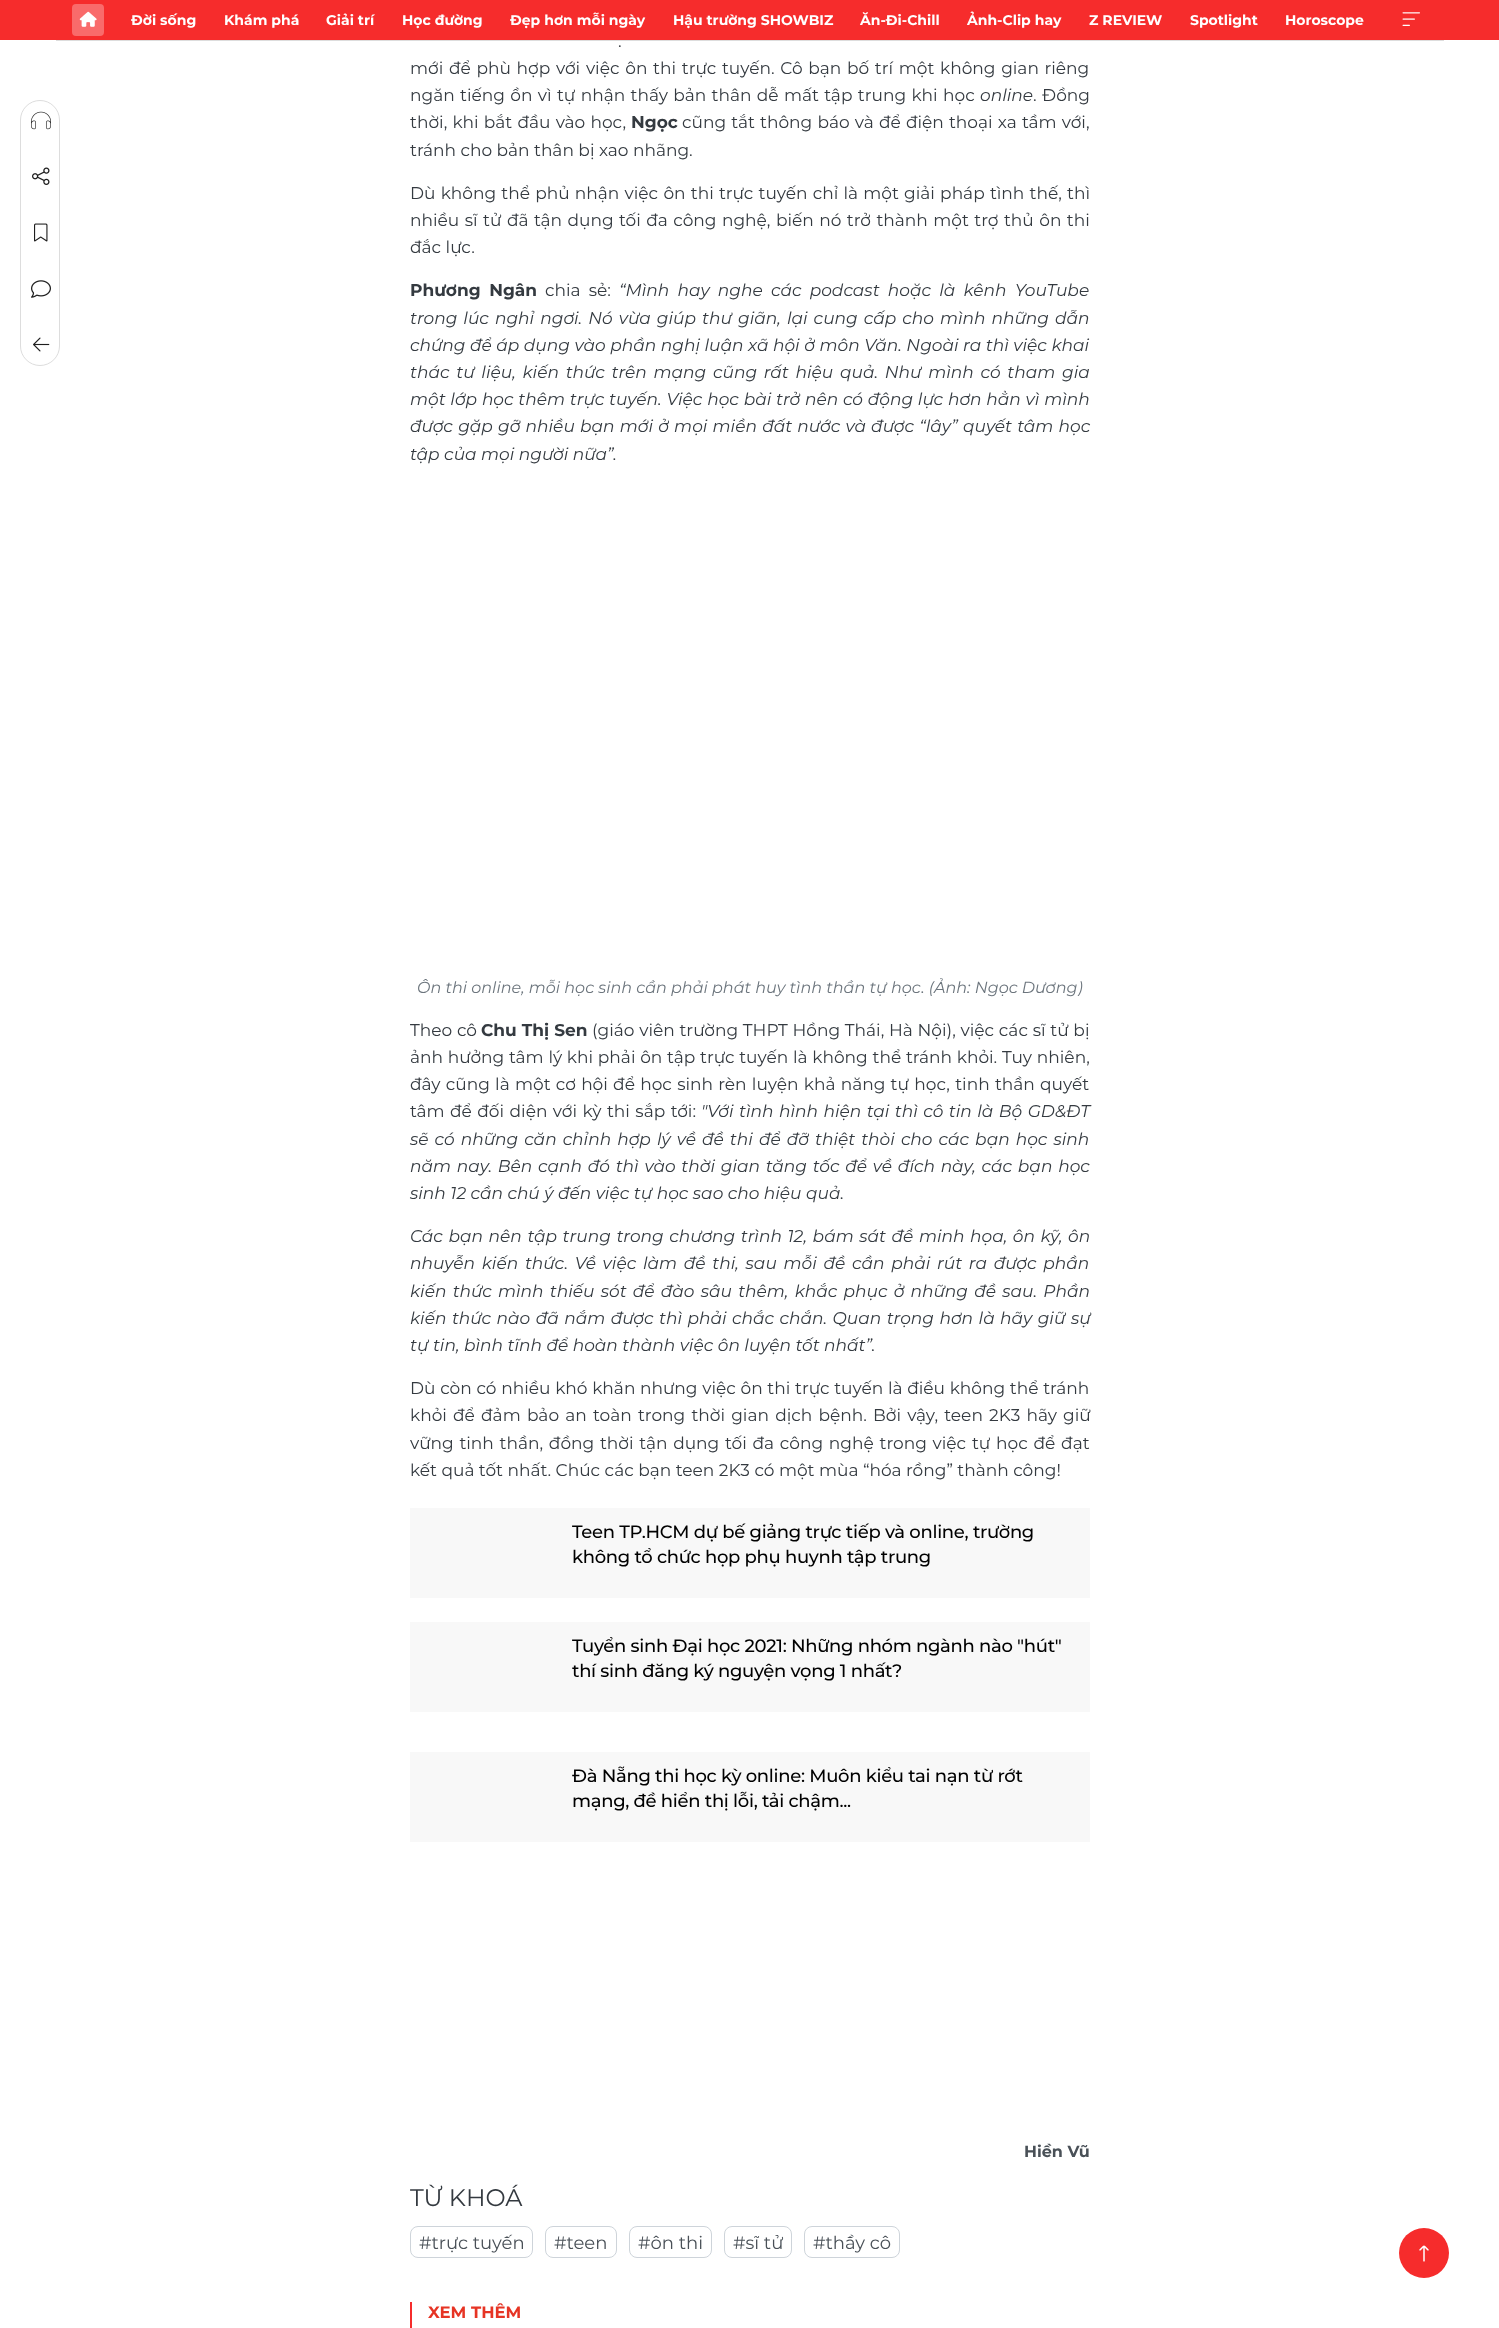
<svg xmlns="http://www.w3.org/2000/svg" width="1499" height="2328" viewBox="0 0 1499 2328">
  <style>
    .t1 { font: bold 14px Montserrat; fill: #fff; }
    .t2 { font: 17px Montserrat; fill: #343a40; }
    .t3 { font: italic 17px Montserrat; fill: #343a40; }
    .t4 { font: bold 17px Montserrat; fill: #343a40; }
    .t5 { font: italic 16px Montserrat; fill: #6c757d; }
    .t6 { font: 500 18px Montserrat; letter-spacing: -0.3px; fill: #000; }
    .t7 { font: bold 16px Montserrat; fill: #495057; }
    .t8 { font: 24px Montserrat; fill: #343a40; }
    .t9 { font: 18px Montserrat; fill: #495057; }
    .t10 { font: bold 16.5px Montserrat; fill: #e63424; }
  </style>
  <rect width="100%" height="100%" fill="#fff"/>
  <rect x="0" y="0" width="1499" height="40" fill="#f62c2c"/>
  <rect x="72" y="4" width="32" height="32" rx="4" fill="#f96b6b"/>
  <image x="79" y="11" width="18" height="16" href="images/1.png"/>
  <text x="131" y="25" class="t1">Đời sống</text>
  <text x="224" y="25" class="t1">Khám phá</text>
  <text x="326" y="25" class="t1">Giải trí</text>
  <text x="402" y="25" class="t1">Học đường</text>
  <text x="510" y="25" class="t1">Đẹp hơn mỗi ngày</text>
  <text x="673" y="25" class="t1">Hậu trường SHOWBIZ</text>
  <text x="860" y="25" class="t1">Ăn-Đi-Chill</text>
  <text x="967" y="25" class="t1">Ảnh-Clip hay</text>
  <text x="1089" y="25" class="t1">Z REVIEW</text>
  <text x="1190" y="25" class="t1">Spotlight</text>
  <text x="1285" y="25" class="t1">Horoscope</text>
  <image x="1402" y="12" width="18" height="14" href="images/2.png"/>
  <rect x="56" y="40" width="1388" height="1" fill="#ddd"/>
  <rect x="20.5" y="100.5" width="39" height="265" rx="19.5" fill="none" stroke="#ddd"/>
  <image x="31" y="111" width="20" height="19" href="images/3.png"/>
  <image x="32" y="167" width="18" height="18" href="images/4.png"/>
  <image x="34" y="223" width="14" height="19" href="images/5.png"/>
  <image x="31" y="280" width="20" height="18" href="images/6.png"/>
  <image x="33" y="337" width="17" height="15" href="images/7.png"/>
  <text x="618" y="47" class="t2">.</text>
  <text x="410" y="74" word-spacing="1.25" class="t2">mới để phù hợp với việc ôn thi trực tuyến. Cô bạn bố trí một không gian riêng</text>
  <text x="410" y="101" word-spacing="0.9" class="t2">ngăn tiếng ồn vì tự nhận thấy bản thân dễ mất tập trung khi học</text>
  <text x="980" y="101" class="t3">online</text>
  <text x="1033" y="101" word-spacing="1" class="t2">. Đồng</text>
  <text x="410" y="128" word-spacing="0.75" class="t2">thời, khi bắt đầu vào học,</text>
  <text x="631" y="128" class="t4">Ngọc</text>
  <text x="682" y="128" word-spacing="0.75" class="t2">cũng tắt thông báo và để điện thoại xa tầm với,</text>
  <text x="410" y="156" class="t2">tránh cho bản thân bị xao nhãng.</text>
  <text x="410" y="199" word-spacing="0.75" class="t2">Dù không thể phủ nhận việc ôn thi trực tuyến chỉ là một giải pháp tình thế, thì</text>
  <text x="410" y="226" word-spacing="1" class="t2">nhiều sĩ tử đã tận dụng tối đa công nghệ, biến nó trở thành một trợ thủ ôn thi</text>
  <text x="410" y="253" class="t2">đắc lực.</text>
  <text x="410" y="296" word-spacing="3.75" class="t4">Phương Ngân</text>
  <text x="545" y="296" word-spacing="3.75" class="t2">chia sẻ:</text>
  <text x="619" y="296" word-spacing="3.75" class="t3">“Mình hay nghe các podcast hoặc là kênh YouTube</text>
  <text x="410" y="324" word-spacing="1.6" class="t3">trong lúc nghỉ ngơi. Nó vừa giúp thư giãn, lại cung cấp cho mình những dẫn</text>
  <text x="410" y="351" word-spacing="0.1" class="t3">chứng để áp dụng vào phần nghị luận xã hội ở môn Văn. Ngoài ra thì việc khai</text>
  <text x="410" y="378" word-spacing="2.25" class="t3">thác tư liệu, kiến thức trên mạng cũng rất hiệu quả. Như mình có tham gia</text>
  <text x="410" y="405" word-spacing="0.3" class="t3">một lớp học thêm trực tuyến. Việc học bài trở nên có động lực hơn hẳn vì mình</text>
  <text x="410" y="432" word-spacing="0.75" class="t3">được gặp gỡ nhiều bạn mới ở mọi miền đất nước và được “lây” quyết tâm học</text>
  <text x="410" y="460" class="t3">tập của mọi người nữa”.</text>
  <text x="417" y="993" class="t5">Ôn thi online, mỗi học sinh cần phải phát huy tình thần tự học. (Ảnh: Ngọc Dương)</text>
  <text x="410" y="1036" word-spacing="0.25" class="t2">Theo cô</text>
  <text x="481" y="1036" word-spacing="0.25" class="t4">Chu Thị Sen</text>
  <text x="592" y="1036" word-spacing="0.25" class="t2">(giáo viên trường THPT Hồng Thái, Hà Nội), việc các sĩ tử bị</text>
  <text x="410" y="1063" word-spacing="0.3" class="t2">ảnh hưởng tâm lý khi phải ôn tập trực tuyến là không thể tránh khỏi. Tuy nhiên,</text>
  <text x="410" y="1090" word-spacing="0.8" class="t2">đây cũng là một cơ hội để học sinh rèn luyện khả năng tự học, tinh thần quyết</text>
  <text x="410" y="1117" word-spacing="1" class="t2">tâm để đối diện với kỳ thi sắp tới:</text>
  <text x="701" y="1117" word-spacing="1" class="t3">"Với tình hình hiện tại thì cô tin là Bộ GD&amp;ĐT</text>
  <text x="410" y="1145" word-spacing="1.6" class="t3">sẽ có những căn chỉnh hợp lý về đề thi để đỡ thiệt thòi cho các bạn học sinh</text>
  <text x="410" y="1172" word-spacing="1.3" class="t3">năm nay. Bên cạnh đó thì vào thời gian tăng tốc để về đích này, các bạn học</text>
  <text x="410" y="1199" class="t3">sinh 12 cần chú ý đến việc tự học sao cho hiệu quả.</text>
  <text x="410" y="1242" word-spacing="1.1" class="t3">Các bạn nên tập trung trong chương trình 12, bám sát đề minh họa, ôn kỹ, ôn</text>
  <text x="410" y="1269" word-spacing="2.25" class="t3">nhuyễn kiến thức. Về việc làm đề thi, sau mỗi đề cần phải rút ra được phần</text>
  <text x="410" y="1297" word-spacing="1.75" class="t3">kiến thức mình thiếu sót để đào sâu thêm, khắc phục ở những đề sau. Phần</text>
  <text x="410" y="1324" word-spacing="1" class="t3">kiến thức nào đã nắm được thì phải chắc chắn. Quan trọng hơn là hãy giữ sự</text>
  <text x="410" y="1351" class="t3">tự tin, bình tĩnh để hoàn thành việc ôn luyện tốt nhất”.</text>
  <text x="410" y="1394" word-spacing="0.25" class="t2">Dù còn có nhiều khó khăn nhưng việc ôn thi trực tuyến là điều không thể tránh</text>
  <text x="410" y="1421" word-spacing="1.75" class="t2">khỏi để đảm bảo an toàn trong thời gian dịch bệnh. Bởi vậy, teen 2K3 hãy giữ</text>
  <text x="410" y="1449" word-spacing="1.3" class="t2">vững tinh thần, đồng thời tận dụng tối đa công nghệ trong việc tự học để đạt</text>
  <text x="410" y="1476" class="t2">kết quả tốt nhất. Chúc các bạn teen 2K3 có một mùa “hóa rồng” thành công!</text>
  <rect x="410" y="1508" width="680" height="90" fill="#f8f8f8"/>
  <text x="572" y="1538" class="t6">Teen TP.HCM dự bế giảng trực tiếp và online, trường</text>
  <text x="572" y="1563" class="t6">không tổ chức họp phụ huynh tập trung</text>
  <rect x="410" y="1622" width="680" height="90" fill="#f8f8f8"/>
  <text x="572" y="1652" class="t6">Tuyển sinh Đại học 2021: Những nhóm ngành nào "hút"</text>
  <text x="572" y="1677" class="t6">thí sinh đăng ký nguyện vọng 1 nhất?</text>
  <rect x="410" y="1752" width="680" height="90" fill="#f8f8f8"/>
  <text x="572" y="1782" class="t6">Đà Nẵng thi học kỳ online: Muôn kiểu tai nạn từ rớt</text>
  <text x="572" y="1807" class="t6">mạng, đề hiển thị lỗi, tải chậm...</text>
  <text x="1024" y="2157" class="t7">Hiền Vũ</text>
  <text x="410" y="2206" class="t8">TỪ KHOÁ</text>
  <rect x="410.5" y="2226.5" width="122" height="31" rx="7.5" fill="none" stroke="#ced4da"/>
  <text x="419" y="2249" class="t9">#trực tuyến</text>
  <rect x="545.5" y="2226.5" width="71" height="31" rx="7.5" fill="none" stroke="#ced4da"/>
  <text x="554" y="2249" class="t9">#teen</text>
  <rect x="629.5" y="2226.5" width="82" height="31" rx="7.5" fill="none" stroke="#ced4da"/>
  <text x="638" y="2249" class="t9">#ôn thi</text>
  <rect x="724.5" y="2226.5" width="67" height="31" rx="7.5" fill="none" stroke="#ced4da"/>
  <text x="733" y="2249" class="t9">#sĩ tử</text>
  <rect x="804.5" y="2226.5" width="95" height="31" rx="7.5" fill="none" stroke="#ced4da"/>
  <text x="813" y="2249" class="t9">#thầy cô</text>
  <rect x="410" y="2302" width="2" height="26" fill="#f62c2c"/>
  <text x="428" y="2318" class="t10">XEM THÊM</text>
  <circle cx="1424" cy="2253" r="25" fill="#f62c2c"/>
  <image x="1419" y="2245" width="10" height="17" href="images/8.png"/>
</svg>
